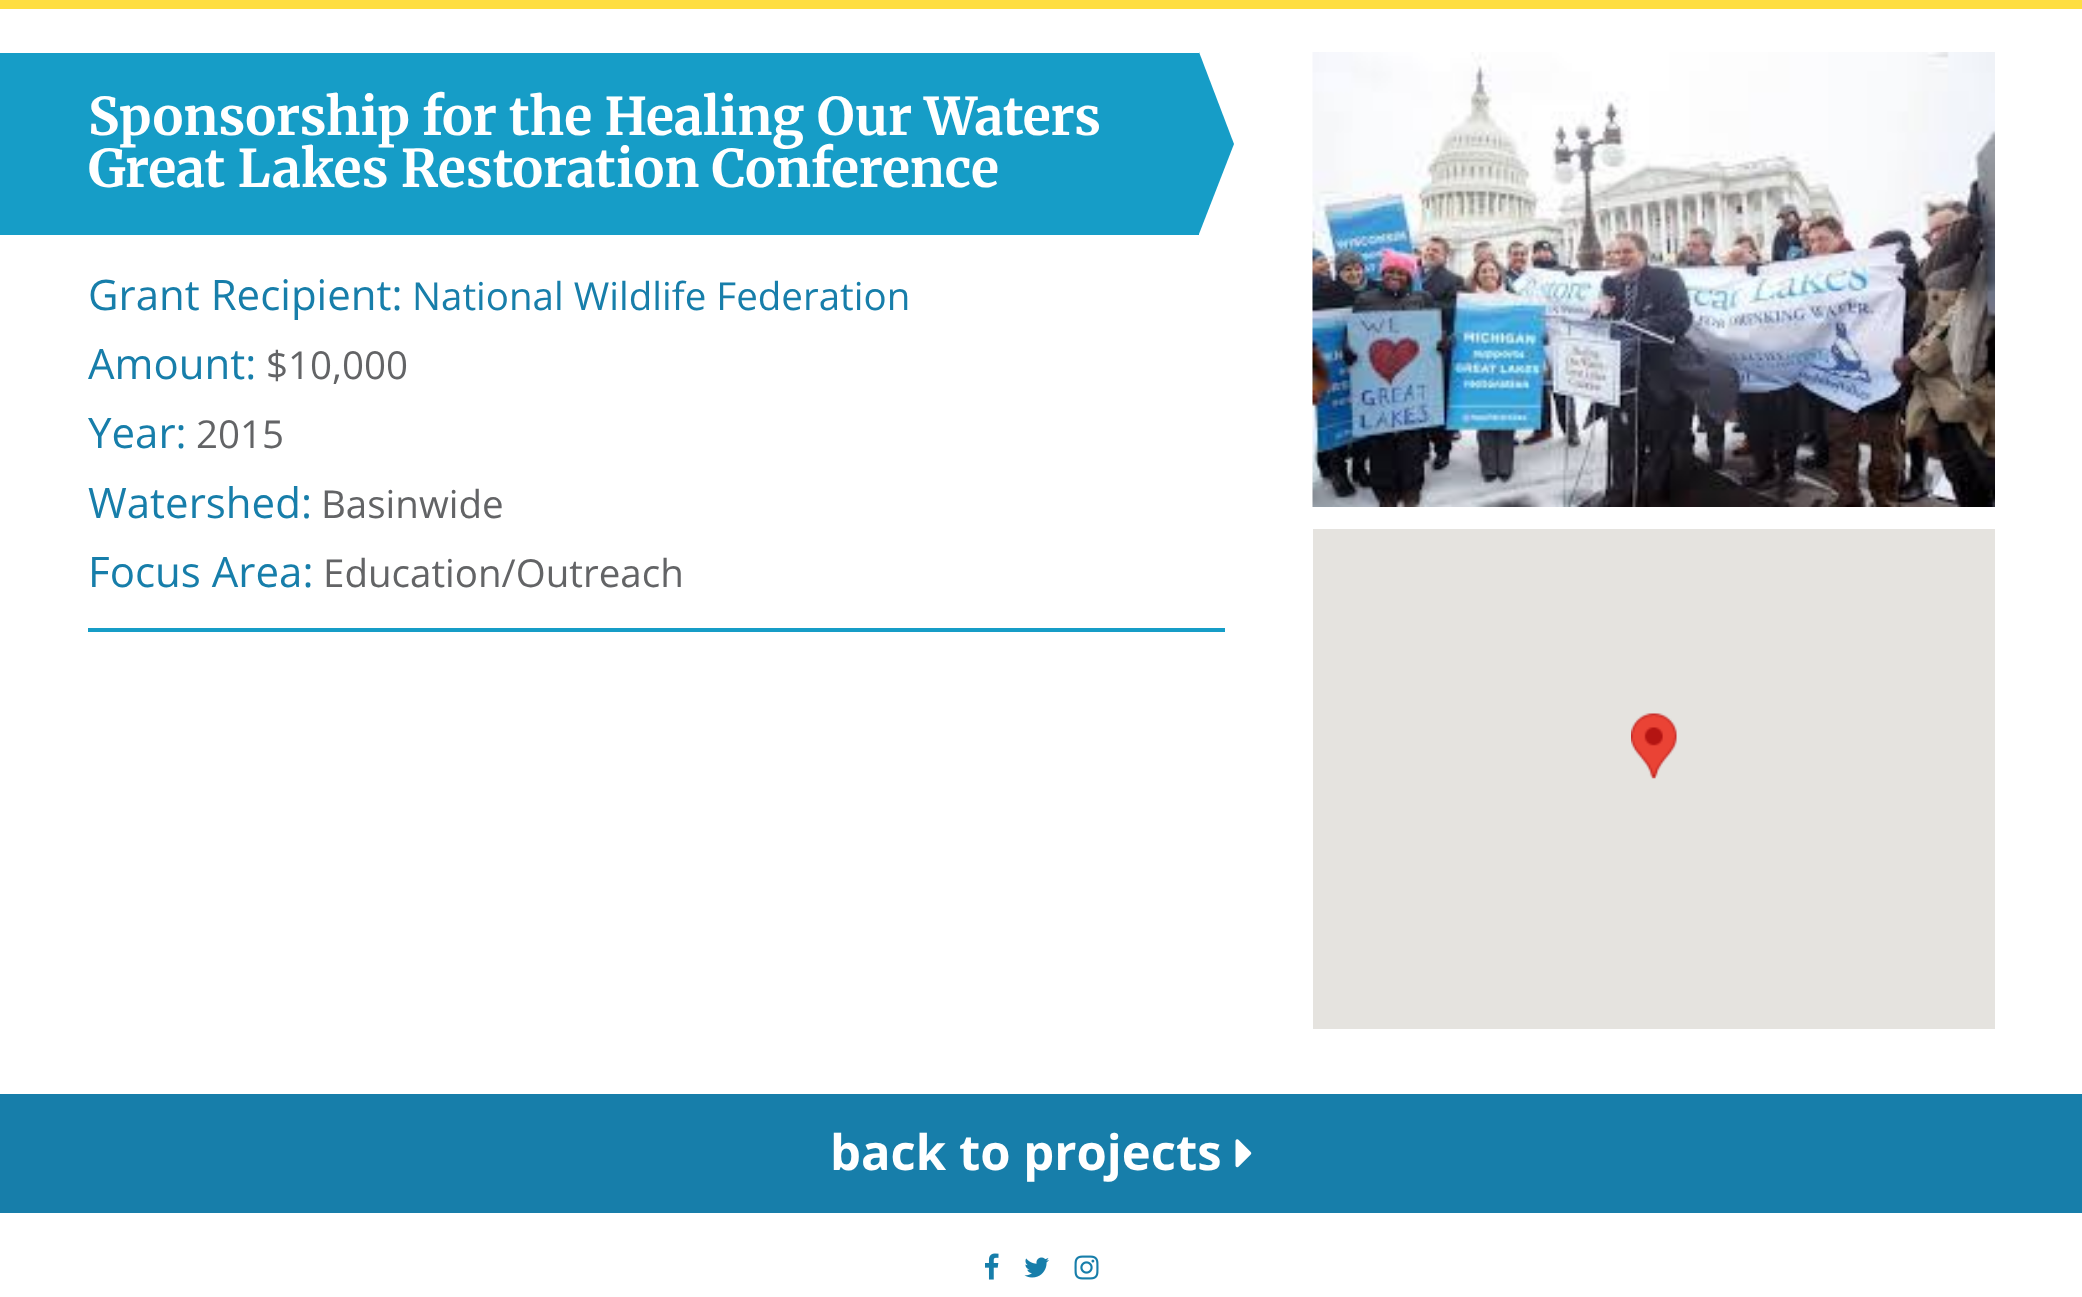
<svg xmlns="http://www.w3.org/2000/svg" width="2082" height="1297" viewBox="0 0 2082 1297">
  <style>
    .t1 { font: bold 51.75px Merriweather; fill: #fff; }
    .t2 { font: 42px Open Sans; fill: #177eaa; }
    .t3 { font: 38.5px Open Sans; fill: #177eaa; }
    .t4 { font: 38.5px Open Sans; fill: #636466; }
    .t5 { font: bold 49px Open Sans; fill: #fff; }
  </style>
  <rect width="100%" height="100%" fill="#fff"/>
  <rect x="0" y="0" width="2082" height="9" fill="#fede41"/>
  <rect x="0" y="53" width="1199" height="182" fill="#169dc7"/>
  <text x="88" y="135" class="t1">Sponsorship for the Healing Our Waters</text>
  <path d="M1199 234V52L1234 144Z" fill="#169dc7"/>
  <text x="88" y="187" class="t1">Great Lakes Restoration Conference</text>
  <rect x="88" y="628" width="1137" height="4" fill="#169dc7"/>
  <text x="88" y="310" class="t2">Grant Recipient:</text>
  <text x="412" y="310" class="t3">National Wildlife Federation</text>
  <text x="88" y="379" class="t2">Amount:</text>
  <text x="266" y="379" class="t4">$10,000</text>
  <text x="88" y="448" class="t2">Year:</text>
  <text x="196" y="448" class="t4">2015</text>
  <text x="88" y="518" class="t2">Watershed:</text>
  <text x="321" y="518" class="t4">Basinwide</text>
  <text x="88" y="587" class="t2">Focus Area:</text>
  <text x="323" y="587" class="t4">Education/Outreach</text>
  <image x="1312" y="52" width="683" height="455" href="images/1.png"/>
  <rect x="1313" y="529" width="682" height="500" fill="#e5e3df"/>
  <image x="1631" y="713" width="46" height="66" href="images/2.png"/>
  <rect x="0" y="1094" width="2082" height="119" fill="#177eaa"/>
  <text x="830" y="1170" class="t5">back to projects</text>
  <image x="1235" y="1139" width="17" height="29" href="images/3.png"/>
  <image x="985" y="1253" width="14" height="27" href="images/4.png"/>
  <image x="1024" y="1257" width="25" height="21" href="images/5.png"/>
  <image x="1074" y="1255" width="25" height="25" href="images/6.png"/>
</svg>
